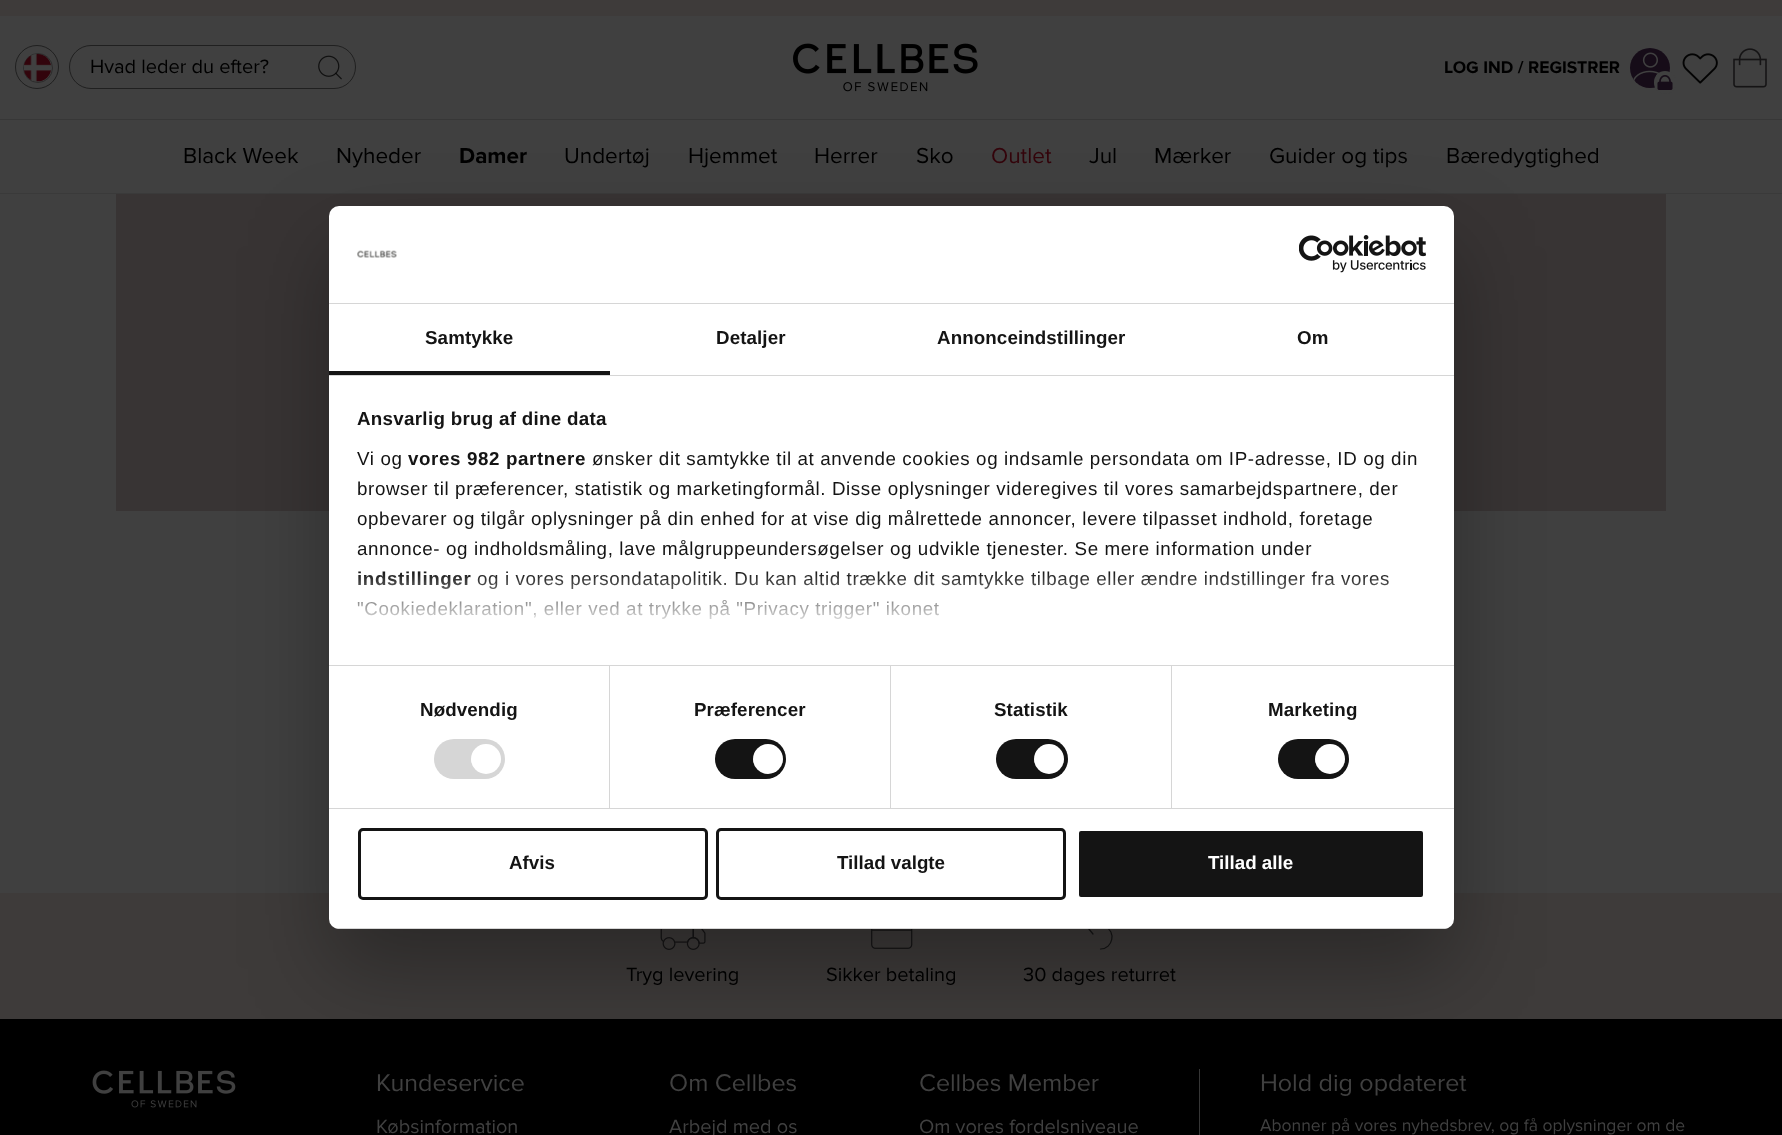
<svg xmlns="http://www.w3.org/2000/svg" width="1782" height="1135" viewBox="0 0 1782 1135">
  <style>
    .t1 { font: 20px Proxima Nova; fill: #000; }
    .t2 { font: bold 17.5px Proxima Nova; fill: #000; }
    .t3 { font: 22.5px Proxima Nova; fill: #000; }
    .t4 { font: bold 22.5px Proxima Nova; fill: #000; }
    .t5 { font: 22.5px Proxima Nova; fill: #34040b; }
    .t6 { font: 25px Proxima Nova; fill: #404040; }
    .t7 { font: 20px Proxima Nova; fill: #404040; }
    .t8 { font: 17.5px Proxima Nova; fill: #404040; }
    .t9 { font: bold 18.75px Liberation Sans; letter-spacing: 0.1px; fill: #141414; }
    .t10 { font: bold 18.75px Liberation Sans; letter-spacing: 0.3px; fill: #141414; }
    .t11 { font: 18.75px Liberation Sans; letter-spacing: 0.62px; fill: #141414; }
    .t12 { font: bold 18.75px Liberation Sans; letter-spacing: 0.62px; fill: #141414; }
    .t13 { font: bold 18.75px Liberation Sans; fill: #141414; }
    .t14 { font: bold 18.75px Liberation Sans; fill: #fff; }
  </style>
  <defs>
    <linearGradient id="g1" gradientUnits="userSpaceOnUse" x1="879" y1="665" x2="879" y2="571"><stop offset="0" stop-color="#fff"/><stop offset="0.5" stop-color="#fff" stop-opacity="0.8"/><stop offset="1" stop-color="#fff" stop-opacity="0"/></linearGradient>
    <clipPath id="clip1"><rect x="329" y="206" width="1125" height="723" rx="10"/></clipPath>
  </defs>
  <rect width="100%" height="100%" fill="#404040"/>
  <rect x="0" y="0" width="1782" height="16" fill="#3e3b3a"/>
  <circle cx="37" cy="67" r="21.5" fill="none" stroke="#202020"/>
  <circle cx="38" cy="68" r="14.5" fill="none" stroke="#2c2c2c"/>
  <image x="23" y="54" width="28" height="28" href="images/1.png"/>
  <rect x="69.5" y="45.5" width="286" height="43" rx="21.5" fill="none" stroke="#202020"/>
  <text x="90" y="73" class="t1">Hvad leder du efter?</text>
  <image x="318" y="55" width="24" height="25" href="images/2.png"/>
  <image x="793" y="43" width="185" height="49" href="images/3.png"/>
  <text x="1444" y="73" class="t2">LOG IND / REGISTRER</text>
  <circle cx="1650" cy="68" r="20" fill="#160c18"/>
  <image x="1633" y="52" width="27" height="29" href="images/4.png"/>
  <rect x="1654" y="71" width="22" height="23" rx="11" fill="#404040"/>
  <image x="1656" y="74" width="17" height="16" href="images/5.png"/>
  <image x="1682" y="53" width="36" height="31" href="images/6.png"/>
  <image x="1733" y="48" width="34" height="40" href="images/7.png"/>
  <rect x="0" y="119" width="1782" height="1" fill="#373737"/>
  <text x="183" y="163" class="t3">Black Week</text>
  <text x="336" y="163" class="t3">Nyheder</text>
  <text x="459" y="163" class="t4">Damer</text>
  <text x="564" y="163" class="t3">Undertøj</text>
  <text x="688" y="163" class="t3">Hjemmet</text>
  <text x="814" y="163" class="t3">Herrer</text>
  <text x="916" y="163" class="t3">Sko</text>
  <text x="991" y="163" class="t5">Outlet</text>
  <text x="1089" y="163" class="t3">Jul</text>
  <text x="1154" y="163" class="t3">Mærker</text>
  <text x="1269" y="163" class="t3">Guider og tips</text>
  <text x="1446" y="163" class="t3">Bæredygtighed</text>
  <rect x="0" y="193" width="1782" height="1" fill="#3a3a3a"/>
  <rect x="116" y="194" width="1550" height="317" fill="#383434"/>
  <rect x="0" y="893" width="1782" height="126" fill="#3e3b3a"/>
  <image x="660" y="929" width="46" height="21" href="images/8.png"/>
  <text x="626" y="981" class="t1">Tryg levering</text>
  <image x="871" y="929" width="42" height="20" href="images/9.png"/>
  <text x="826" y="981" class="t1">Sikker betaling</text>
  <path d="M1100.5 949C1113 949 1116.5 931 1105 926.5C1101 924.5 1091 925.5 1086 925.5M1086 925.5L1093 919M1086 925.5L1093 934" fill="none" stroke="#151515" stroke-width="1.2" stroke-linecap="round" stroke-linejoin="round"/>
  <text x="1023" y="981" class="t1">30 dages returret</text>
  <rect x="0" y="1019" width="1782" height="116" fill="#000"/>
  <image x="92" y="1070" width="144" height="38" href="images/10.png"/>
  <text x="376" y="1091" class="t6">Kundeservice</text>
  <text x="376" y="1133" class="t7">Købsinformation</text>
  <text x="669" y="1091" class="t6">Om Cellbes</text>
  <text x="669" y="1133" class="t7">Arbejd med os</text>
  <text x="919" y="1091" class="t6">Cellbes Member</text>
  <text x="919" y="1133" class="t7">Om vores fordelsniveaue</text>
  <rect x="1199" y="1069" width="1" height="66" fill="#363636"/>
  <text x="1260" y="1091" class="t6">Hold dig opdateret</text>
  <text x="1260" y="1131" class="t8">Abonner på vores nyhedsbrev, og få oplysninger om de</text>
  <rect x="329" y="246" width="1125" height="723" rx="10" fill="#0000004d" filter="blur(42.5px)"/>
  <rect x="329" y="206" width="1125" height="723" rx="10" fill="#fff"/>
  <rect x="329" y="303" width="1125" height="1" fill="#d6d6d6"/>
  <image x="357" y="250" width="40" height="8" href="images/11.png"/>
  <image x="1299" y="235" width="127" height="38" href="images/12.png"/>
  <rect x="329" y="375" width="1125" height="1" fill="#d6d6d6"/>
  <rect x="329" y="371" width="281" height="4" fill="#141414"/>
  <text x="425" y="344" class="t9">Samtykke</text>
  <text x="716" y="344" class="t9">Detaljer</text>
  <text x="937" y="344" class="t9">Annonceindstillinger</text>
  <text x="1297" y="344" class="t9">Om</text>
  <rect x="329" y="665" width="1125" height="1" fill="#d6d6d6"/>
  <text x="357" y="425" class="t10">Ansvarlig brug af dine data</text>
  <text x="357" y="465" class="t11">Vi og</text>
  <text x="408" y="465" class="t12">vores 982 partnere</text>
  <text x="592" y="465" class="t11">ønsker dit samtykke til at anvende cookies og indsamle persondata om IP-adresse, ID og din</text>
  <text x="357" y="495" class="t11">browser til præferencer, statistik og marketingformål. Disse oplysninger videregives til vores samarbejdspartnere, der</text>
  <text x="357" y="525" class="t11">opbevarer og tilgår oplysninger på din enhed for at vise dig målrettede annoncer, levere tilpasset indhold, foretage</text>
  <text x="357" y="555" class="t11">annonce- og indholdsmåling, lave målgruppeundersøgelser og udvikle tjenester. Se mere information under</text>
  <text x="357" y="585" class="t12">indstillinger</text>
  <text x="477" y="585" class="t11">og i vores persondatapolitik. Du kan altid trække dit samtykke tilbage eller ændre indstillinger fra vores</text>
  <text x="357" y="615" class="t11">"Cookiedeklaration", eller ved at trykke på "Privacy trigger" ikonet</text>
  <rect x="357" y="572" width="1033" height="47" fill="url(#g1)"/>
  <rect x="329" y="808" width="1125" height="1" fill="#d6d6d6"/>
  <rect x="609" y="666" width="1" height="142" fill="#d6d6d6"/>
  <text x="420" y="716" class="t9">Nødvendig</text>
  <rect x="434" y="739" width="71" height="40" rx="20" fill="#d6d6d6"/>
  <circle cx="486" cy="759" r="15" fill="#fff"/>
  <rect x="890" y="666" width="1" height="142" fill="#d6d6d6"/>
  <text x="694" y="716" class="t9">Præferencer</text>
  <rect x="715" y="739" width="71" height="40" rx="20" fill="#141414"/>
  <circle cx="768" cy="759" r="15" fill="#fff"/>
  <rect x="1171" y="666" width="1" height="142" fill="#d6d6d6"/>
  <text x="994" y="716" class="t9">Statistik</text>
  <rect x="996" y="739" width="72" height="40" rx="20" fill="#141414"/>
  <circle cx="1049" cy="759" r="15" fill="#fff"/>
  <text x="1268" y="716" class="t9">Marketing</text>
  <rect x="1278" y="739" width="71" height="40" rx="20" fill="#141414"/>
  <circle cx="1330" cy="759" r="15" fill="#fff"/>
  <g clip-path="url(#clip1)">
    <rect x="329" y="928" width="1125" height="1" fill="#d6d6d6"/>
  </g>
  <rect x="359.5" y="829.5" width="347" height="69" rx="3.5" fill="none" stroke="#141414" stroke-width="3"/>
  <text x="509" y="869" class="t13">Afvis</text>
  <rect x="717.5" y="829.5" width="347" height="69" rx="3.5" fill="none" stroke="#141414" stroke-width="3"/>
  <text x="837" y="869" class="t13">Tillad valgte</text>
  <rect x="1077.5" y="829.5" width="347" height="69" rx="3.5" fill="#141414" stroke="#fff" stroke-width="3"/>
  <text x="1208" y="869" class="t14">Tillad alle</text>
</svg>
